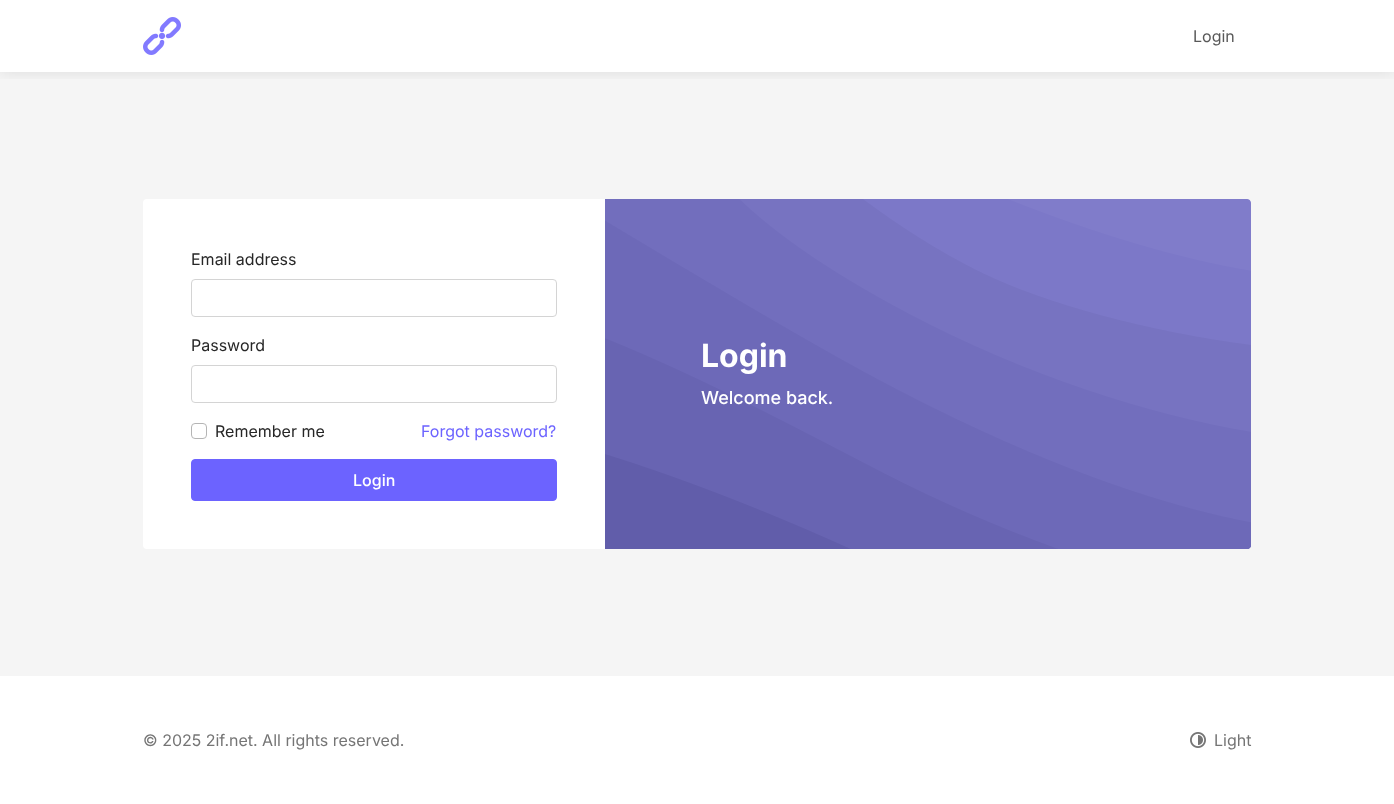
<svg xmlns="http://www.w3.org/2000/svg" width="1394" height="804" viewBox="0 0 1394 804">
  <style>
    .t1 { font: 16px Inter; fill: #595959; }
    .t2 { font: 16px Inter; fill: #262626; }
    .t3 { font: 16px Inter; fill: #6c63ff; }
    .t4 { font: 500 16px Inter; fill: #fff; }
    .t5 { font: bold 32px Inter; fill: #fff; }
    .t6 { font: 500 18px Inter; fill: #fff; }
    .t7 { font: 16px Inter; fill: #757575; }
  </style>
  <defs>
    <clipPath id="clip1"><rect x="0" y="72" width="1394" height="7"/></clipPath>
  </defs>
  <rect width="100%" height="100%" fill="#fff"/>
  <rect x="0" y="72" width="1394" height="604" fill="#f5f5f5"/>
  <g clip-path="url(#clip1)">
    <rect x="0" y="0" width="1394" height="72" fill="#0000001a" filter="blur(8px)"/>
  </g>
  <image x="143" y="17" width="38" height="38" href="images/1.png"/>
  <text x="1193" y="42" class="t1">Login</text>
  <rect x="143" y="199" width="1108" height="350" rx="4" fill="#fff"/>
  <text x="191" y="265" class="t2">Email address</text>
  <rect x="191.5" y="279.5" width="365" height="37" rx="3.5" fill="none" stroke="#d4d4d4"/>
  <text x="191" y="351" class="t2">Password</text>
  <rect x="191.5" y="365.5" width="365" height="37" rx="3.5" fill="none" stroke="#d4d4d4"/>
  <rect x="191.5" y="423.5" width="15" height="15" rx="3.5" fill="none" stroke="#b5b5b5"/>
  <text x="215" y="437" class="t2">Remember me</text>
  <text x="421" y="437" class="t3">Forgot password?</text>
  <rect x="191.5" y="459.5" width="365" height="41" rx="3.5" fill="#6c63ff" stroke="#6c63ff"/>
  <text x="353" y="486" class="t4">Login</text>
  <image x="605" y="199" width="646" height="350" href="images/2.png"/>
  <text x="701" y="367" class="t5">Login</text>
  <text x="701" y="404" class="t6">Welcome back.</text>
  <text x="143" y="746" class="t7">© 2025 2if.net. All rights reserved.</text>
  <image x="1190" y="732" width="16" height="16" href="images/3.png"/>
  <text x="1214" y="746" class="t7">Light</text>
</svg>
